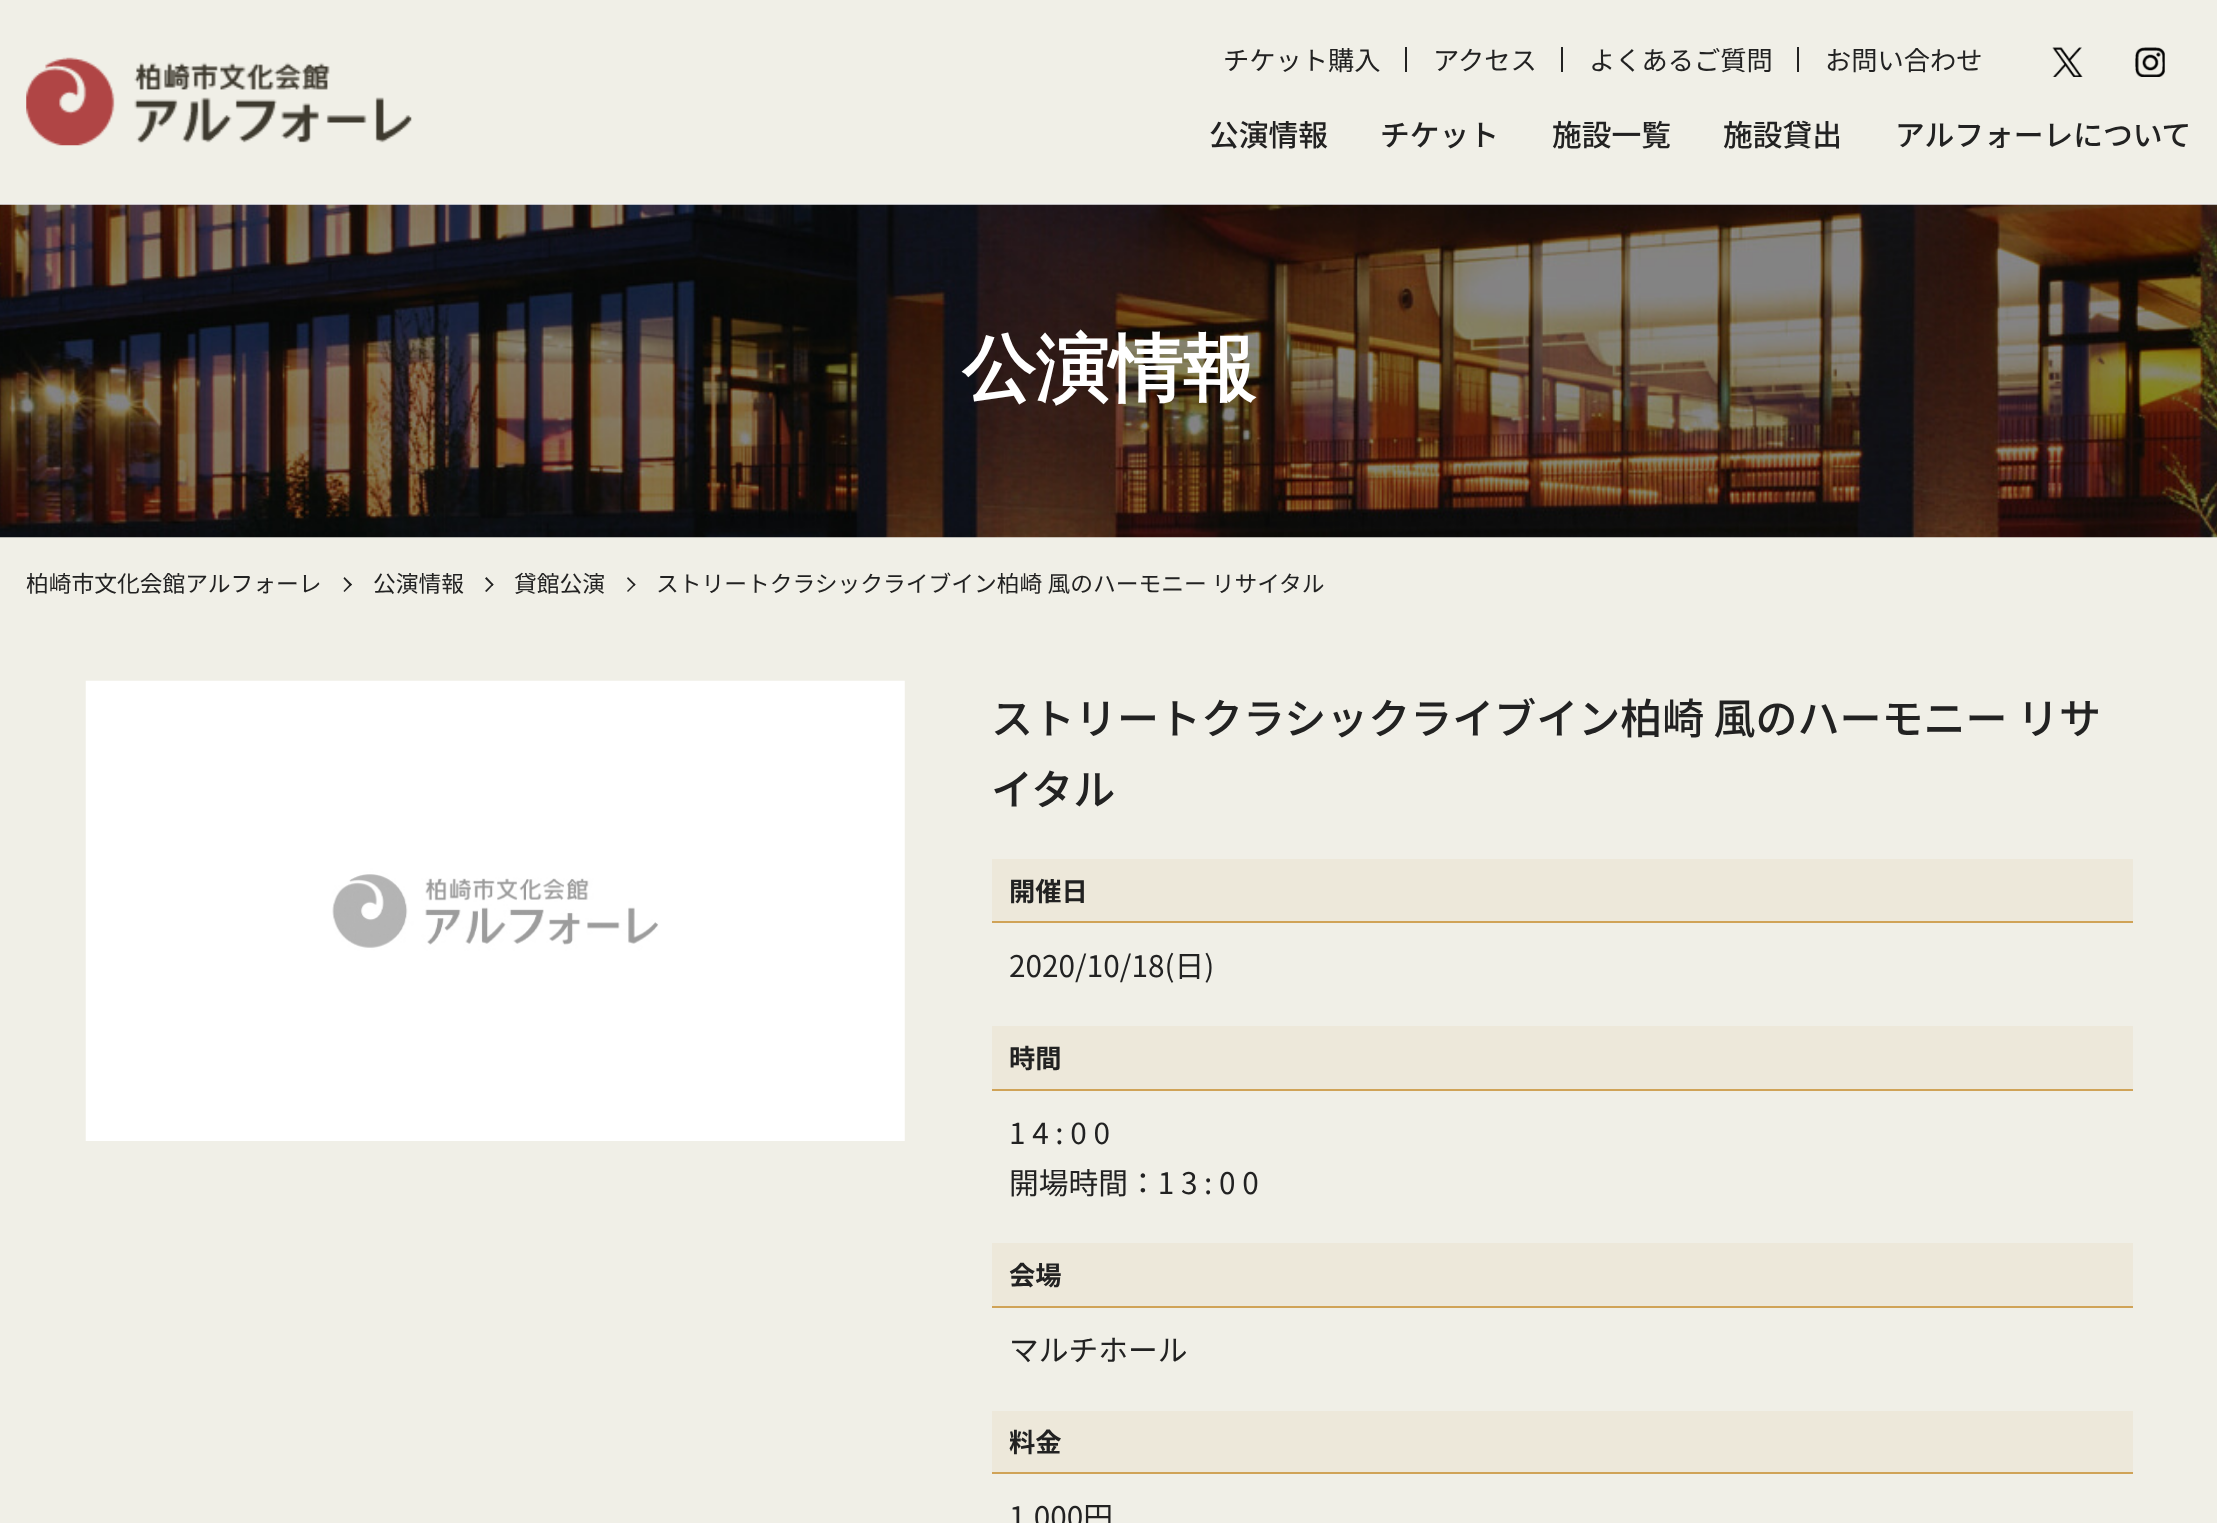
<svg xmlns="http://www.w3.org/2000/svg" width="2217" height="1523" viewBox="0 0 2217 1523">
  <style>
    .t1 { font: 26.25px Noto Sans JP; fill: #222; }
    .t2 { font: 500 29.75px Noto Sans JP; fill: #222; }
    .t3 { font: bold 73.5px WenQuanYi Zen Hei; fill: #fff; }
    .t4 { font: 22.75px Noto Sans JP; fill: #222; }
    .t5 { font: 500 42px Noto Sans JP; fill: #222; }
    .t6 { font: bold 26.25px Noto Sans JP; fill: #222; }
    .t7 { font: 29.75px Noto Sans JP; fill: #222; }
  </style>
  <rect width="100%" height="100%" fill="#f0efe7"/>
  <rect x="0" y="203" width="2217" height="2" fill="#efefef"/>
  <image x="26" y="57" width="386" height="89" href="images/1.png"/>
  <text x="1223" y="70" class="t1">チケット購入</text>
  <rect x="1405" y="47" width="2" height="25" fill="#222"/>
  <text x="1433" y="70" class="t1">アクセス</text>
  <rect x="1561" y="47" width="2" height="25" fill="#222"/>
  <text x="1589" y="70" class="t1">よくあるご質問</text>
  <rect x="1797" y="47" width="2" height="25" fill="#222"/>
  <text x="1825" y="70" class="t1">お問い合わせ</text>
  <image x="2052" y="47" width="31" height="30" href="images/2.png"/>
  <image x="2135" y="47" width="30" height="30" href="images/3.png"/>
  <text x="1209" y="146" class="t2">公演情報</text>
  <text x="1380" y="146" class="t2">チケット</text>
  <text x="1552" y="146" class="t2">施設一覧</text>
  <text x="1723" y="146" class="t2">施設貸出</text>
  <text x="1895" y="146" class="t2">アルフォーレについて</text>
  <image x="0" y="204" width="2217" height="334" href="images/4.png"/>
  <text x="962" y="394" class="t3">公演情報</text>
  <text x="26" y="592" class="t4">柏崎市文化会館アルフォーレ</text>
  <path d="M344.5 577L352 584.5L350.5 586L343.5 578.5Z" fill="#222"/>
  <path d="M350.5 583.5L352 584.5L344.5 592L343.5 591Z" fill="#222"/>
  <text x="373" y="592" class="t4">公演情報</text>
  <path d="M486.5 577L493.5 584.5L492.5 586L485 578.5Z" fill="#222"/>
  <path d="M492.5 583.5L493.5 584.5L486.5 592L485 591Z" fill="#222"/>
  <text x="514" y="592" class="t4">貸館公演</text>
  <path d="M628 577L635.5 584.5L634.5 586L627 578.5Z" fill="#222"/>
  <path d="M634.5 583.5L635.5 584.5L628 592L627 591Z" fill="#222"/>
  <text x="656" y="592" class="t4">ストリートクラシックライブイン柏崎 風のハーモニー リサイタル</text>
  <image x="85" y="680" width="820" height="461" href="images/5.png"/>
  <text x="991" y="734" class="t5">ストリートクラシックライブイン柏崎 風のハーモニー リサ</text>
  <text x="991" y="805" class="t5">イタル</text>
  <rect x="992" y="859" width="1141" height="62" fill="#ede8da"/>
  <rect x="992" y="921" width="1141" height="2" fill="#d0a357"/>
  <text x="1009" y="901" class="t6">開催日</text>
  <text x="1009" y="977" class="t7">2020/10/18(日)</text>
  <rect x="992" y="1026" width="1141" height="63" fill="#ede8da"/>
  <rect x="992" y="1089" width="1141" height="2" fill="#d0a357"/>
  <text x="1009" y="1068" class="t6">時間</text>
  <text x="1009" y="1144" class="t7">1 4 : 0 0</text>
  <text x="1009" y="1194" class="t7">開場時間：1 3 : 0 0</text>
  <rect x="992" y="1243" width="1141" height="63" fill="#ede8da"/>
  <rect x="992" y="1306" width="1141" height="2" fill="#d0a357"/>
  <text x="1009" y="1285" class="t6">会場</text>
  <text x="1009" y="1361" class="t7">マルチホール</text>
  <rect x="992" y="1411" width="1141" height="61" fill="#ede8da"/>
  <rect x="992" y="1472" width="1141" height="2" fill="#d0a357"/>
  <text x="1009" y="1452" class="t6">料金</text>
  <text x="1009" y="1528" class="t7">1,000円</text>
</svg>
